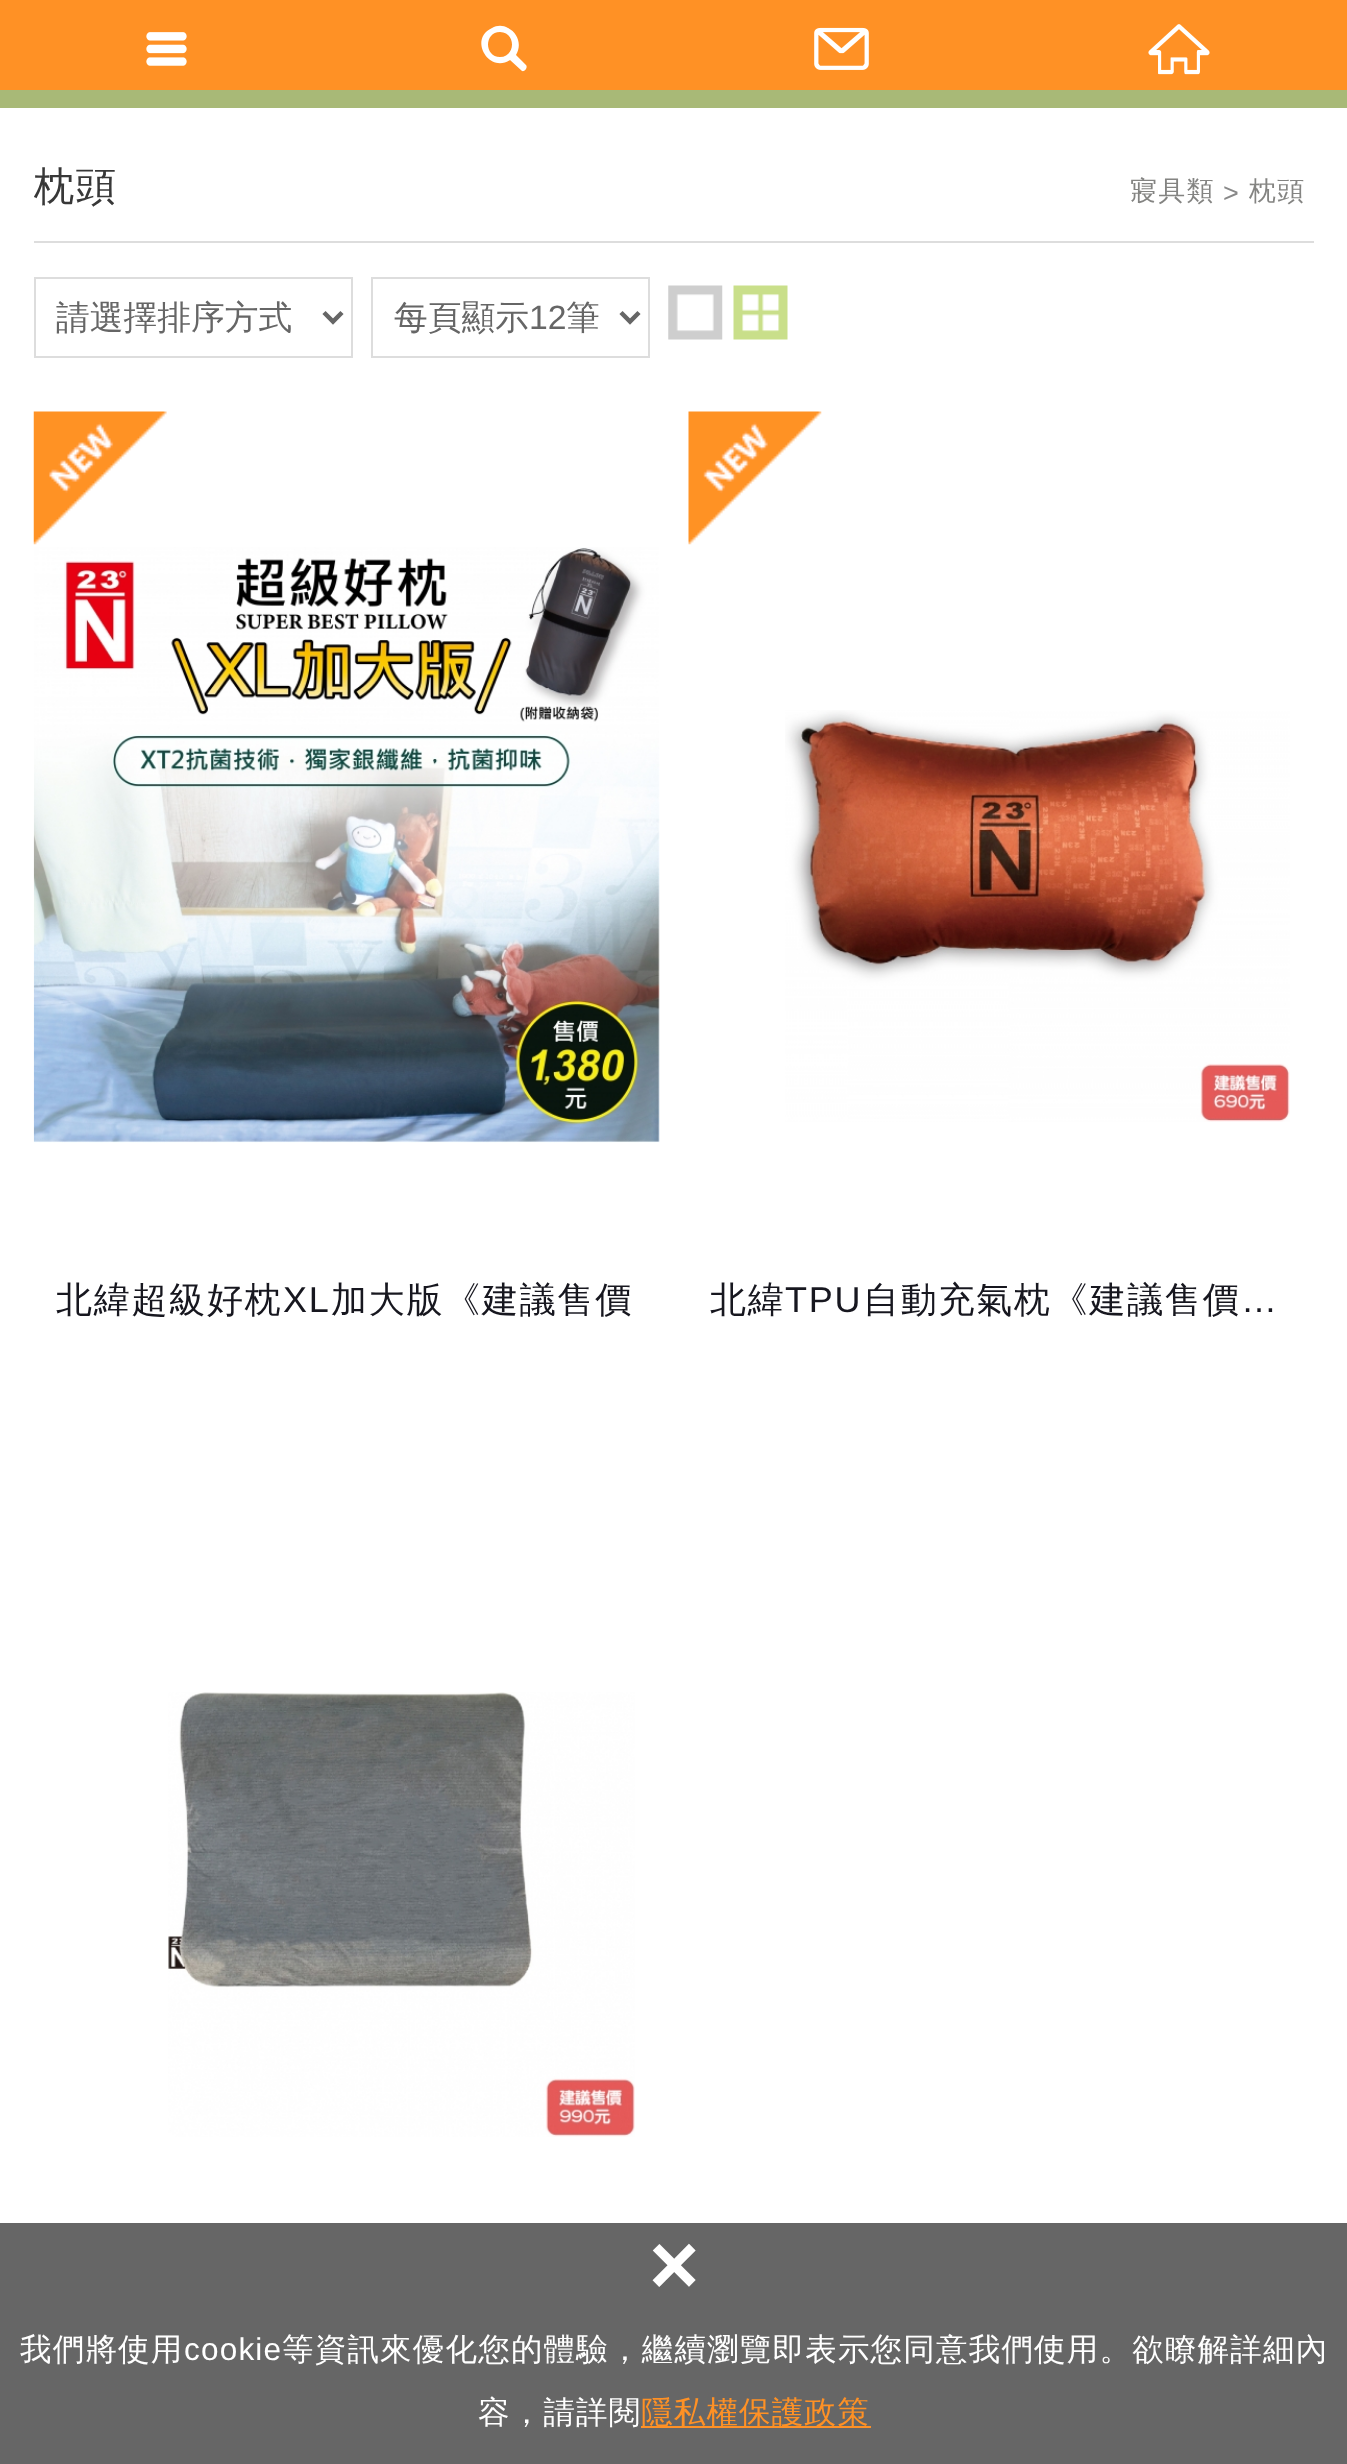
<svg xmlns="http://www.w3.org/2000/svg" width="1347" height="2464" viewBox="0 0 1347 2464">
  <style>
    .t1 { font: 500 40.5px WenQuanYi Zen Hei; letter-spacing: 1.2px; fill: #383838; }
    .t2 { font: 500 27px WenQuanYi Zen Hei; letter-spacing: 1.2px; fill: #848482; }
    .t3 { font: 27px Liberation Sans; letter-spacing: 1.2px; fill: #888; }
    .t4 { font: 500 33.75px WenQuanYi Zen Hei; fill: #666; }
    .t5 { font: 33.75px Liberation Sans; fill: #666; }
    .t6 { font: 500 36px WenQuanYi Zen Hei; letter-spacing: 1.75px; fill: #17171f; }
    .t7 { font: 36px Liberation Sans; letter-spacing: 1.75px; fill: #17171f; }
    .t8 { font: bold 86px Liberation Sans; fill: #fff; }
    .t9 { font: 500 31.5px WenQuanYi Zen Hei; letter-spacing: 1.2px; fill: #fff; }
    .t10 { font: 31.5px Liberation Sans; letter-spacing: 1.2px; fill: #fff; }
    .t11 { font: 500 31.5px WenQuanYi Zen Hei; letter-spacing: 1.2px; fill: #ff9125; }
  </style>
  <rect width="100%" height="100%" fill="#fff"/>
  <rect x="0" y="0" width="1347" height="90" fill="#ff9125"/>
  <image x="146" y="32" width="41" height="34" href="images/1.png"/>
  <path d="M526 65L516 55C522 45 518 33 508 28C503 25 497 25 492 28C468 39 489 74 510 60L522 71C525 72 528 67 526 65ZM500 57C484 57 484 32 500 32C516 32 516 57 500 57Z" fill="#fff"/>
  <image x="814" y="27" width="55" height="43" href="images/2.png"/>
  <image x="1148" y="24" width="62" height="51" href="images/3.png"/>
  <rect x="0" y="90" width="1347" height="18" fill="#a8b977"/>
  <rect x="34" y="241" width="1280" height="2" fill="#ddd"/>
  <text x="34" y="200" class="t1">枕頭</text>
  <text x="1130" y="200" class="t2">寢具類</text>
  <text x="1223" y="202" class="t3">&gt;</text>
  <text x="1249" y="200" class="t2">枕頭</text>
  <rect x="35" y="278" width="317" height="79" fill="none" stroke="#ddd" stroke-width="2"/>
  <path d="M324 312.5L333 321.5L342 312.5" fill="none" stroke="#666" stroke-width="4.5"/>
  <text x="56" y="329" class="t4">請選擇排序方式</text>
  <rect x="372" y="278" width="277" height="79" fill="none" stroke="#ddd" stroke-width="2"/>
  <path d="M621 312.5L630 321.5L639 312.5" fill="none" stroke="#666" stroke-width="4.5"/>
  <text x="394" y="329" class="t4">每頁顯示</text>
  <text x="529" y="329" class="t5">12</text>
  <text x="566" y="329" class="t4">筆</text>
  <image x="668" y="285" width="55" height="55" href="images/4.png"/>
  <image x="733" y="285" width="55" height="55" href="images/5.png"/>
  <image x="33" y="411" width="134" height="134" href="images/6.png"/>
  <image x="33" y="547" width="627" height="596" href="images/7.png"/>
  <text x="56" y="1312" class="t6">北緯超級好枕</text>
  <text x="283" y="1312" class="t7">XL</text>
  <text x="331" y="1312" class="t6">加大版《建議售價</text>
  <image x="688" y="411" width="134" height="134" href="images/8.png"/>
  <image x="785" y="710" width="505" height="412" href="images/9.png"/>
  <text x="710" y="1312" class="t6">北緯</text>
  <text x="785" y="1312" class="t7">TPU</text>
  <text x="863" y="1312" class="t6">自動充氣枕《建議售價</text>
  <text x="1241" y="1312" class="t7">…</text>
  <image x="168" y="1692" width="467" height="445" href="images/10.png"/>
  <rect x="0" y="2223" width="1347" height="241" fill="#666"/>
  <text x="649" y="2294" class="t8">×</text>
  <text x="20" y="2360" class="t9">我們將使用</text>
  <text x="184" y="2360" class="t10">cookie</text>
  <text x="282" y="2360" class="t9">等資訊來優化您的體驗，繼續瀏覽即表示您同意我們使用。欲瞭解詳細內</text>
  <text x="478" y="2423" class="t9">容，請詳閱</text>
  <rect x="641" y="2426" width="230" height="2" fill="#ff9125"/>
  <text x="641" y="2423" class="t11">隱私權保護政策</text>
</svg>
